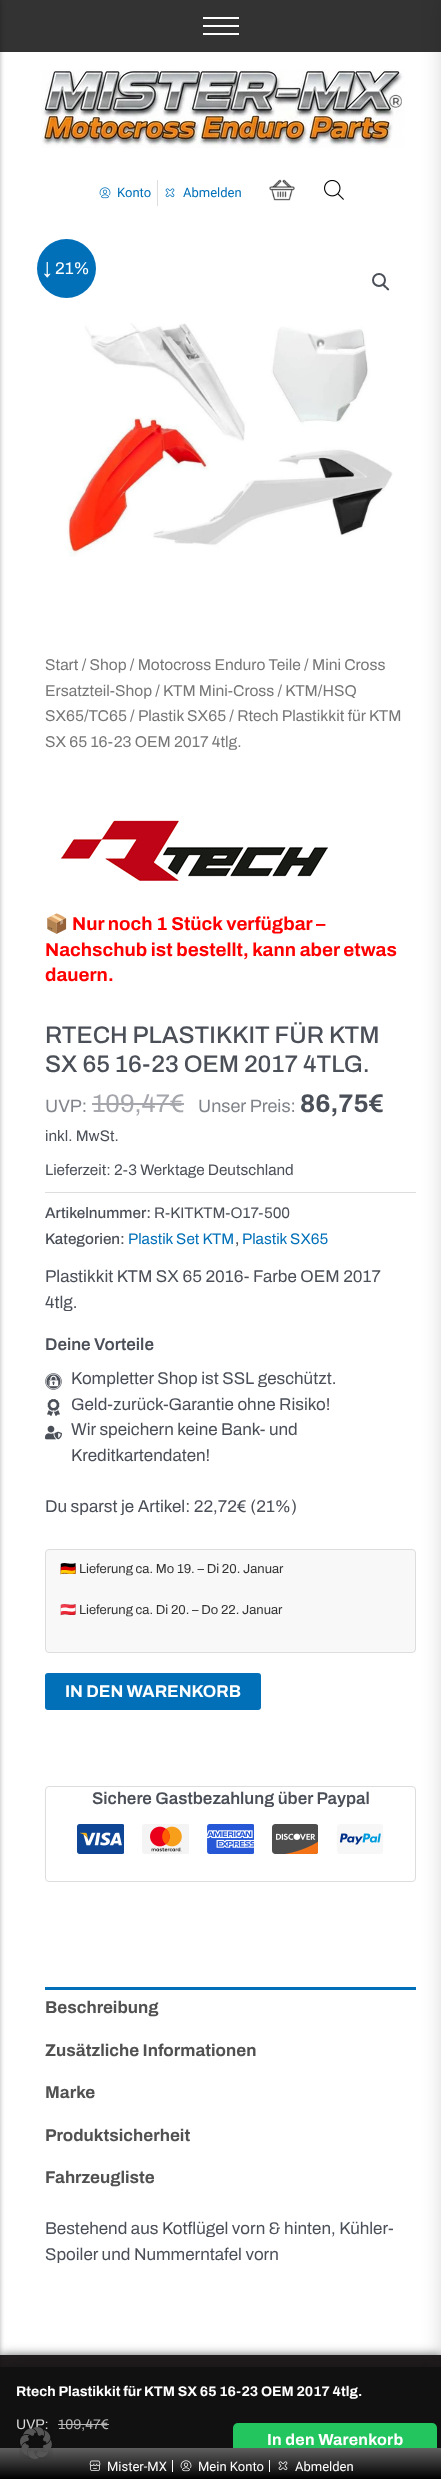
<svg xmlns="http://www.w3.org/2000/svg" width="441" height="2479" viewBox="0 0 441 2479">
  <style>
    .t1 { font: 13px Roboto; fill: #0170b9; }
    .t2 { font: 17px Archivo; fill: #fff; }
    .t3 { font: 15.6px Archivo; fill: #777; }
    .t4 { font: bold 18.75px Noto Color Emoji; fill: #f00; }
    .t5 { font: bold 18.75px Archivo; fill: #f00; }
    .t6 { font: 500 24px Archivo; fill: #4b4f58; }
    .t7 { font: 18px Archivo; fill: #81848a; }
    .t8 { font: 25.5px Archivo; fill: #a5a7ac; }
    .t9 { font: bold 25.5px Archivo; fill: #4b4f58; }
    .t10 { font: 15.25px Archivo; fill: #4b4f58; }
    .t11 { font: 500 15.25px Archivo; fill: #4b4f58; }
    .t12 { font: 15.25px Archivo; fill: #0170b9; }
    .t13 { font: 17px Archivo; fill: #4b4f58; }
    .t14 { font: 600 17px Archivo; fill: #4b4f58; }
    .t15 { font: 13px Noto Color Emoji; fill: #333; }
    .t16 { font: 13px Archivo; fill: #333; }
    .t17 { font: bold 17px Archivo; fill: #fff; }
    .t18 { font: bold 17px Archivo; fill: #515151; }
    .t19 { font: 13px Roboto; fill: #fff; }
    .t20 { font: bold 14px Archivo; fill: #fff; }
    .t21 { font: 14px Archivo; fill: #dbdbdb; }
    .t22 { font: 14px Archivo; fill: #b8b8b8; }
    .t23 { font: bold 16px Archivo; letter-spacing: 0.25px; fill: #fff; }
  </style>
  <defs>
    <linearGradient id="g1" gradientUnits="userSpaceOnUse" x1="221" y1="2448" x2="221" y2="2479"><stop offset="0" stop-color="#5e5e5e"/><stop offset="1" stop-color="#000"/></linearGradient>
  </defs>
  <rect width="100%" height="100%" fill="#fff"/>
  <rect x="0" y="0" width="441" height="52" fill="#333"/>
  <rect x="0" y="2355" width="441" height="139" fill="#00000080" filter="blur(5px)"/>
  <rect x="0" y="2355" width="441" height="12" fill="#231f20"/>
  <rect x="-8" y="0" width="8" height="2479" fill="#0000004d" filter="blur(2.5px)"/>
  <rect x="203" y="17" width="36" height="2" fill="#fff"/>
  <rect x="203" y="25" width="36" height="2" fill="#fff"/>
  <rect x="203" y="33" width="36" height="2" fill="#fff"/>
  <image x="269" y="179" width="26" height="22" href="images/1.png"/>
  <rect x="45" y="1192" width="371" height="1" fill="#ddd"/>
  <rect x="45.5" y="1549.5" width="370" height="103" rx="3.5" fill="#f8f8f8" stroke="#ddd"/>
  <rect x="45.5" y="1786.5" width="370" height="95" rx="3.5" fill="none" stroke="#ddd"/>
  <rect x="45" y="1987" width="371" height="3" fill="#0170b9"/>
  <rect x="441" y="0" width="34" height="2479" rx="4" fill="#00000026" filter="blur(10px)"/>
  <image x="41" y="69" width="364" height="79" href="images/2.png"/>
  <image x="99" y="187" width="12" height="12" href="images/3.png"/>
  <text x="117" y="197" class="t1">Konto</text>
  <rect x="157" y="180" width="1" height="26" fill="#ddd"/>
  <image x="165" y="188" width="10" height="10" href="images/4.png"/>
  <text x="183" y="197" class="t1">Abmelden</text>
  <image x="324" y="180" width="20" height="20" href="images/5.png"/>
  <circle cx="66.5" cy="268.5" r="29.5" fill="#0170b9"/>
  <text x="43" y="274" class="t2">↓ 21%</text>
  <circle cx="379" cy="280" r="6" fill="none" stroke="#4b4f58" stroke-width="2"/>
  <path d="M383 284.5C384.5 283.5 386 286 386.5 286.5C387.5 287.5 390 289 389 290C387.5 291.5 386 288.5 385.5 288C384.5 287.5 382 285.5 383 284.5Z" fill="#4b4f58"/>
  <image x="67" y="323" width="326" height="234" href="images/6.png"/>
  <text x="45" y="670" class="t3">Start / Shop / Motocross Enduro Teile / Mini Cross</text>
  <text x="45" y="696" class="t3">Ersatzteil-Shop / KTM Mini-Cross / KTM/HSQ</text>
  <text x="45" y="721" class="t3">SX65/TC65 / Plastik SX65 / Rtech Plastikkit für KTM</text>
  <text x="45" y="747" class="t3">SX 65 16-23 OEM 2017 4tlg.</text>
  <image x="61" y="820" width="267" height="61" href="images/7.png"/>
  <text x="45" y="930" class="t4">📦</text>
  <text x="72" y="930" class="t5">Nur noch 1 Stück verfügbar –</text>
  <text x="45" y="956" class="t5">Nachschub ist bestellt, kann aber etwas</text>
  <text x="45" y="981" class="t5">dauern.</text>
  <text x="45" y="1043" class="t6">RTECH PLASTIKKIT FÜR KTM</text>
  <text x="45" y="1072" class="t6">SX 65 16-23 OEM 2017 4TLG.</text>
  <text x="45" y="1112" class="t7">UVP:</text>
  <text x="92" y="1112" class="t8">109,47€</text>
  <rect x="92" y="1103" width="92" height="2" fill="#a5a7ac"/>
  <text x="198" y="1112" class="t7">Unser Preis:</text>
  <text x="300" y="1112" class="t9">86,75€</text>
  <text x="45" y="1141" class="t10">inkl. MwSt.</text>
  <text x="45" y="1175" class="t10">Lieferzeit: 2-3 Werktage Deutschland</text>
  <text x="45" y="1218" class="t11">Artikelnummer:</text>
  <text x="154" y="1218" class="t10">R-KITKTM-O17-500</text>
  <text x="45" y="1244" class="t11">Kategorien:</text>
  <text x="128" y="1244" class="t12">Plastik Set KTM</text>
  <text x="235" y="1244" class="t11">,</text>
  <text x="242" y="1244" class="t12">Plastik SX65</text>
  <text x="45" y="1282" class="t13">Plastikkit KTM SX 65 2016- Farbe OEM 2017</text>
  <text x="45" y="1308" class="t13">4tlg.</text>
  <text x="45" y="1350" class="t14">Deine Vorteile</text>
  <image x="45" y="1373" width="17" height="17" href="images/8.png"/>
  <text x="71" y="1384" class="t13">Kompletter Shop ist SSL geschützt.</text>
  <image x="47" y="1399" width="13" height="17" href="images/9.png"/>
  <text x="71" y="1410" class="t13">Geld-zurück-Garantie ohne Risiko!</text>
  <image x="45" y="1425" width="17" height="15" href="images/10.png"/>
  <text x="71" y="1435" class="t13">Wir speichern keine Bank- und</text>
  <text x="71" y="1461" class="t13">Kreditkartendaten!</text>
  <text x="45" y="1512" class="t13">Du sparst je Artikel: 22,72€ (21%)</text>
  <text x="60" y="1573" class="t15">🇩🇪</text>
  <text x="79" y="1573" class="t16">Lieferung ca. Mo 19. – Di 20. Januar</text>
  <text x="60" y="1614" class="t15">🇦🇹</text>
  <text x="79" y="1614" class="t16">Lieferung ca. Di 20. – Do 22. Januar</text>
  <rect x="45" y="1673" width="216" height="37" rx="3" fill="#0170b9"/>
  <text x="65" y="1697" class="t17">IN DEN WARENKORB</text>
  <text x="92" y="1804" class="t14">Sichere Gastbezahlung über Paypal</text>
  <image x="77" y="1824" width="47" height="30" href="images/11.png"/>
  <image x="142" y="1824" width="47" height="30" href="images/12.png"/>
  <image x="207" y="1824" width="47" height="30" href="images/13.png"/>
  <image x="272" y="1824" width="46" height="30" href="images/14.png"/>
  <image x="337" y="1824" width="46" height="30" href="images/15.png"/>
  <text x="45" y="2013" class="t18">Beschreibung</text>
  <text x="45" y="2056" class="t18">Zusätzliche Informationen</text>
  <text x="45" y="2098" class="t18">Marke</text>
  <text x="45" y="2141" class="t18">Produktsicherheit</text>
  <text x="45" y="2183" class="t18">Fahrzeugliste</text>
  <text x="45" y="2234" class="t13">Bestehend aus Kotflügel vorn &amp; hinten, Kühler-</text>
  <text x="45" y="2260" class="t13">Spoiler und Nummerntafel vorn</text>
  <rect x="0" y="2361" width="441" height="112" fill="#00000040" filter="blur(9px)"/>
  <rect x="0" y="2367" width="441" height="81" fill="#111"/>
  <rect x="233" y="2423" width="204" height="33" rx="5" fill="#22c55e"/>
  <rect x="0" y="2448" width="441" height="31" fill="url(#g1)"/>
  <image x="89" y="2460" width="12" height="11" href="images/16.png"/>
  <text x="107" y="2471" class="t19">Mister-MX</text>
  <rect x="172" y="2460" width="1" height="12" fill="#fff"/>
  <image x="180" y="2460" width="12" height="12" href="images/17.png"/>
  <text x="198" y="2471" class="t19">Mein Konto</text>
  <rect x="269" y="2460" width="1" height="12" fill="#fff"/>
  <image x="278" y="2461" width="10" height="10" href="images/18.png"/>
  <text x="295" y="2471" class="t19">Abmelden</text>
  <text x="16" y="2396" class="t20">Rtech Plastikkit für KTM SX 65 16-23 OEM 2017 4tlg.</text>
  <text x="16" y="2429" class="t21">UVP:</text>
  <text x="58" y="2429" class="t22">109,47€</text>
  <rect x="58" y="2424" width="51" height="1" fill="#b8b8b8"/>
  <text x="267" y="2445" class="t23">In den Warenkorb</text>
  <image x="19" y="2423" width="34" height="36" href="images/19.png"/>
</svg>
